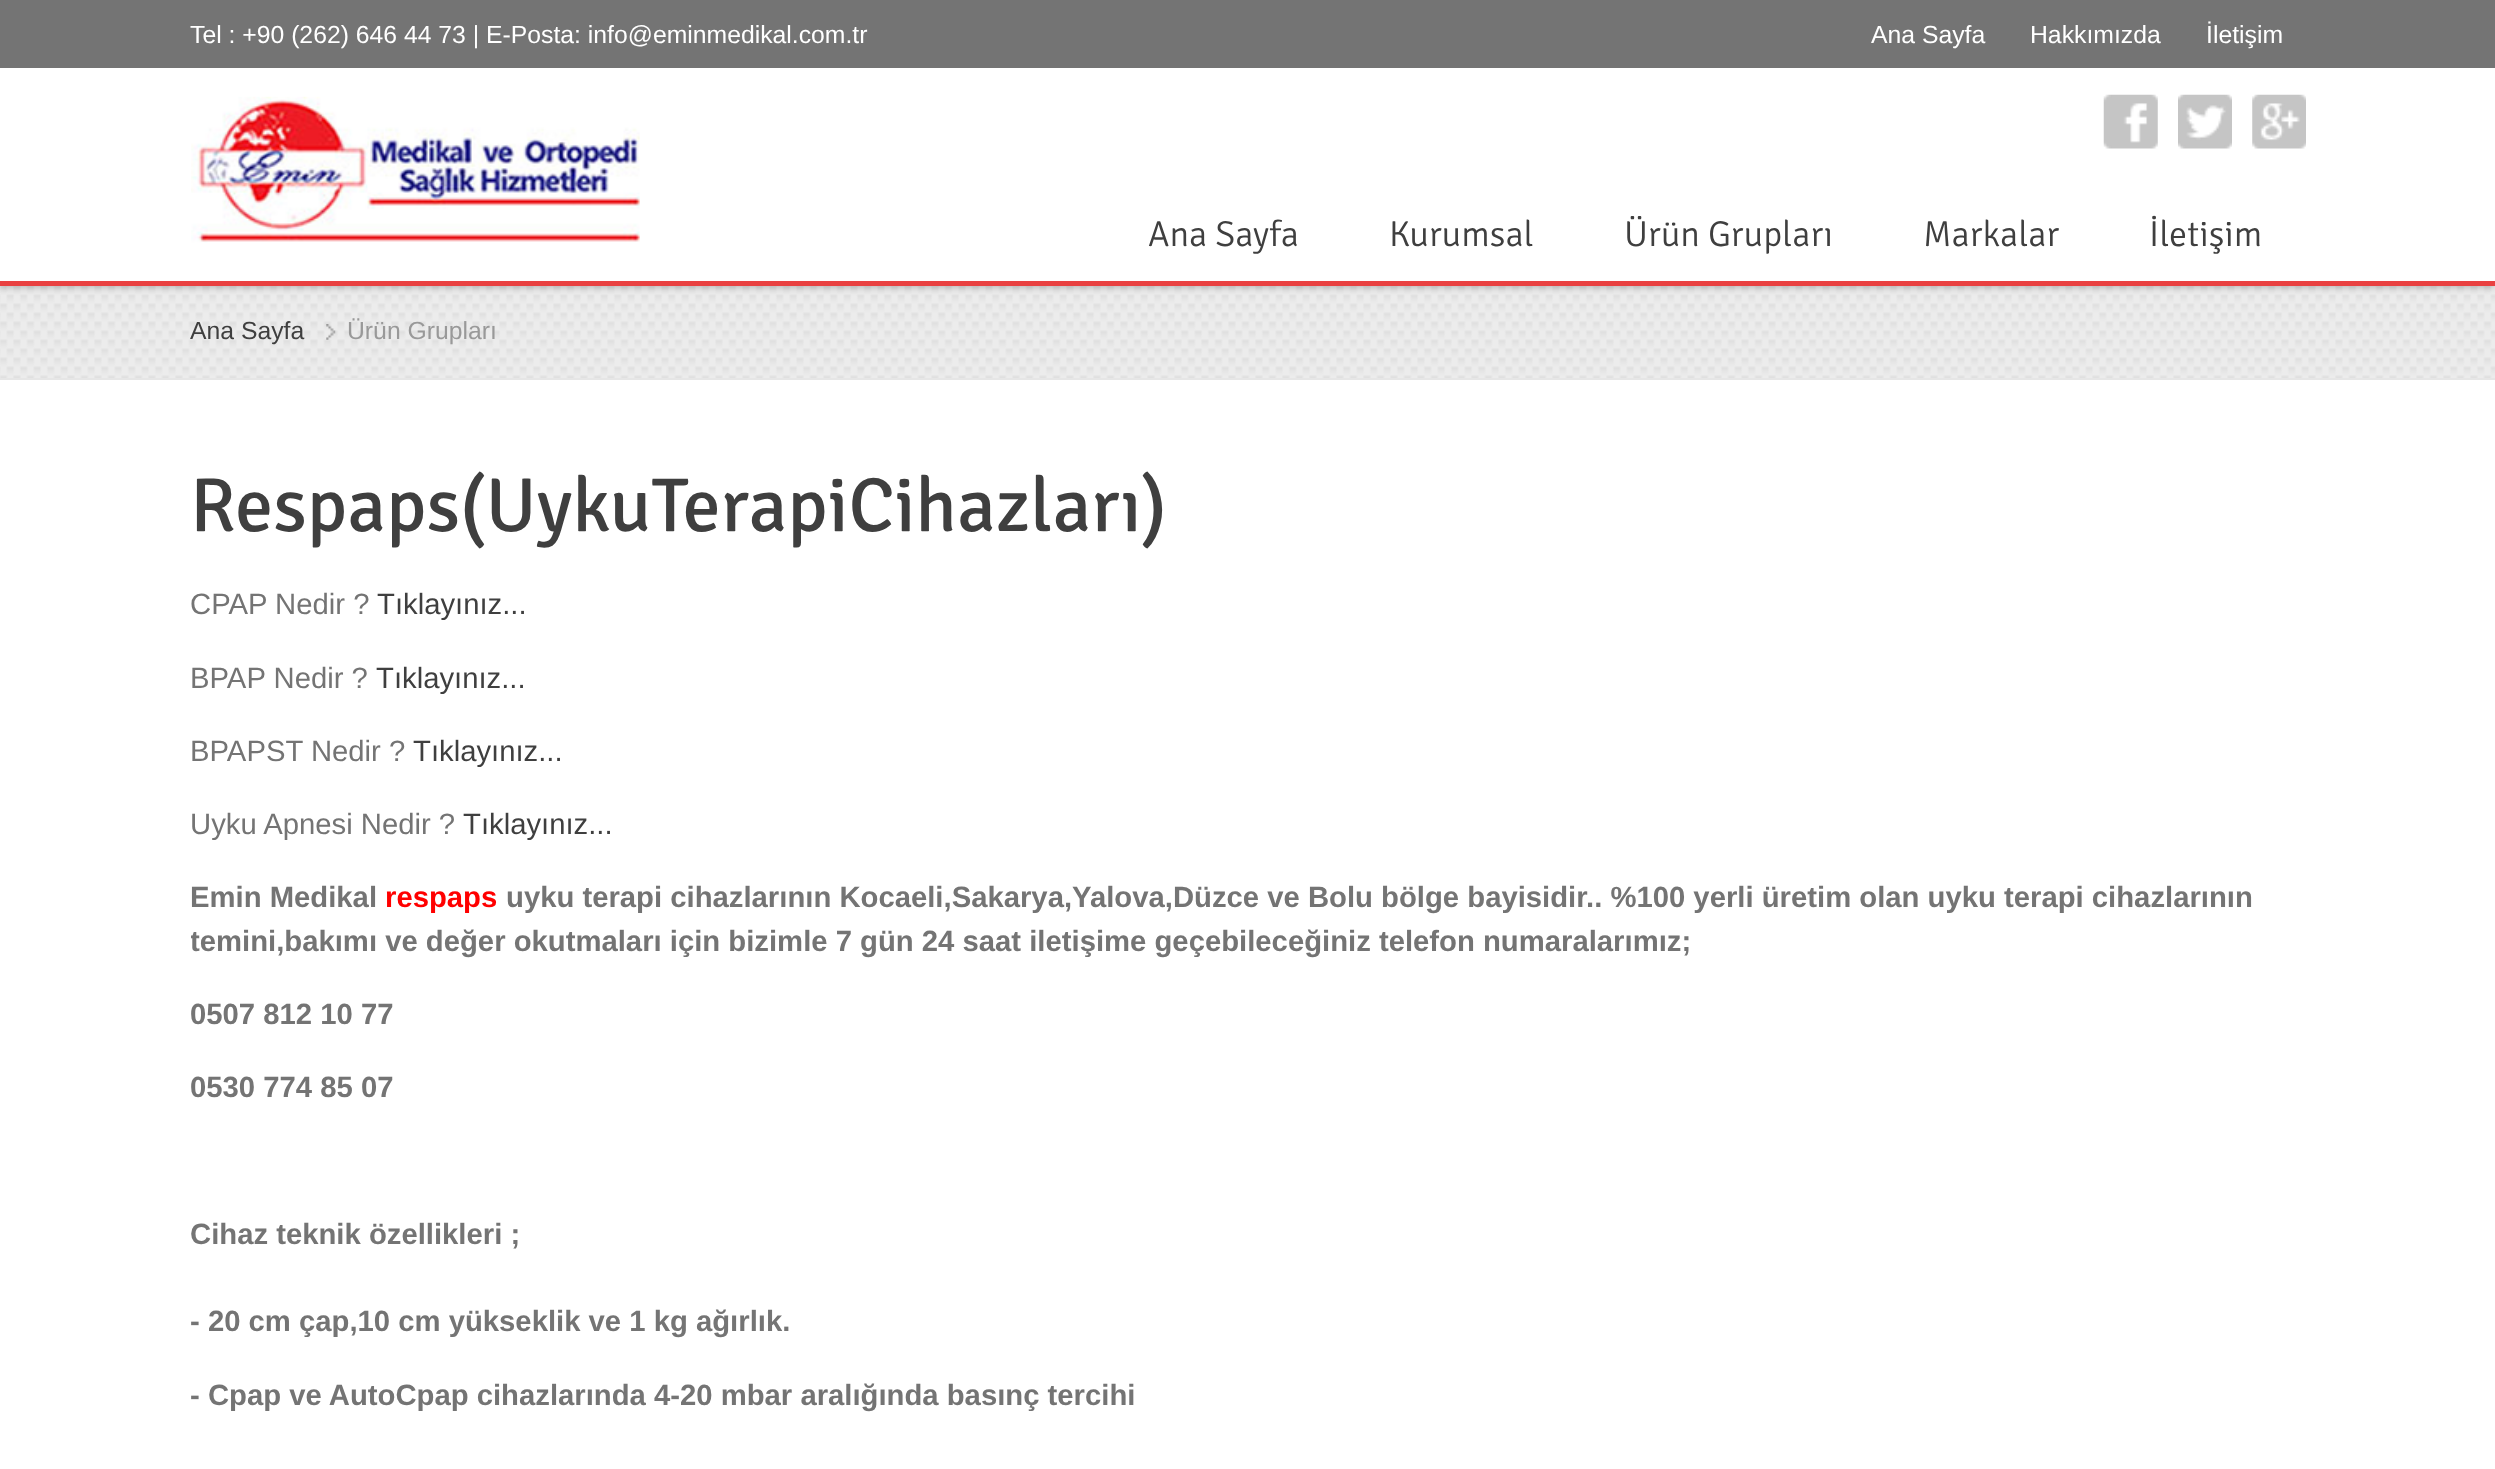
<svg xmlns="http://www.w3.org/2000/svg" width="2495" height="1469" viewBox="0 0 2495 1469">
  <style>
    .t1 { font: 24.75px Liberation Sans; fill: #fff; }
    .t2 { font: 300 36px Signika; fill: #3f3f3f; }
    .t3 { font: 24.75px Liberation Sans; fill: #3f3f3f; }
    .t4 { font: 24.75px Liberation Sans; fill: #999; }
    .t5 { font: 76.5px Signika; fill: #3f3f3f; }
    .t6 { font: 29.27px Liberation Sans; fill: #747474; }
    .t7 { font: 29.27px Liberation Sans; fill: #3f3f3f; }
    .t8 { font: bold 29.27px Liberation Sans; fill: #747474; }
    .t9 { font: bold 29.27px Liberation Sans; fill: #f00; }
  </style>
  <defs>
    <clipPath id="clip1"><rect x="191" y="380" width="2115" height="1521"/></clipPath>
  </defs>
  <rect width="100%" height="100%" fill="#fff"/>
  <rect x="0" y="286" width="2495" height="92" fill="#ececec"/>
  <image x="0" y="286" width="2495" height="92" href="images/5.png"/>
  <rect x="0" y="0" width="2495" height="286" fill="#0000004d" filter="blur(4.5px)"/>
  <rect x="0" y="68" width="2495" height="213" fill="#fff"/>
  <rect x="0" y="281" width="2495" height="5" fill="#e94141"/>
  <rect x="0" y="0" width="2495" height="68" fill="#747474"/>
  <text x="190" y="43" class="t1">Tel : +90 (262) 646 44 73 | E-Posta: info@eminmedikal.com.tr</text>
  <text x="1871" y="43" class="t1">Ana Sayfa</text>
  <text x="2030" y="43" class="t1">Hakkımızda</text>
  <text x="2206" y="43" class="t1">İletişim</text>
  <image x="191" y="96" width="449" height="147" href="images/1.png"/>
  <image x="2103" y="94" width="55" height="55" href="images/2.png"/>
  <image x="2178" y="94" width="54" height="55" href="images/3.png"/>
  <image x="2252" y="94" width="54" height="55" href="images/4.png"/>
  <text x="1148" y="246" class="t2">Ana Sayfa</text>
  <text x="1389" y="246" class="t2">Kurumsal</text>
  <text x="1624" y="246" class="t2">Ürün Grupları</text>
  <text x="1923" y="246" class="t2">Markalar</text>
  <text x="2149" y="246" class="t2">İletişim</text>
  <rect x="0" y="378" width="2495" height="2" fill="#e6e6e6"/>
  <image x="326" y="324" width="10" height="16" href="images/6.png"/>
  <text x="190" y="339" class="t3">Ana Sayfa</text>
  <text x="347" y="339" class="t4">Ürün Grupları</text>
  <text x="190" y="531" class="t5">Respaps(UykuTerapiCihazları)</text>
  <text x="190" y="614" class="t6">CPAP Nedir ?</text>
  <text x="377" y="614" class="t7">Tıklayınız...</text>
  <text x="190" y="688" class="t6">BPAP Nedir ?</text>
  <text x="376" y="688" class="t7">Tıklayınız...</text>
  <text x="190" y="761" class="t6">BPAPST Nedir ?</text>
  <text x="413" y="761" class="t7">Tıklayınız...</text>
  <text x="190" y="834" class="t6">Uyku Apnesi Nedir ?</text>
  <text x="463" y="834" class="t7">Tıklayınız...</text>
  <text x="190" y="907" class="t8">Emin Medikal</text>
  <text x="385" y="907" class="t9">respaps</text>
  <text x="506" y="907" class="t8">uyku terapi cihazlarının Kocaeli,Sakarya,Yalova,Düzce ve Bolu bölge bayisidir.. %100 yerli üretim olan uyku terapi cihazlarının</text>
  <g clip-path="url(#clip1)">
    <text x="190" y="951" class="t8">temini,bakımı ve değer okutmaları için bizimle 7 gün 24 saat iletişime geçebileceğiniz telefon numaralarımız;</text>
  </g>
  <text x="190" y="1024" class="t8">0507 812 10 77</text>
  <text x="190" y="1097" class="t8">0530 774 85 07</text>
  <text x="190" y="1244" class="t8">Cihaz teknik özellikleri ;</text>
  <text x="190" y="1331" class="t8">- 20 cm çap,10 cm yükseklik ve 1 kg ağırlık.</text>
  <text x="190" y="1405" class="t8">- Cpap ve AutoCpap cihazlarında 4-20 mbar aralığında basınç tercihi</text>
</svg>
